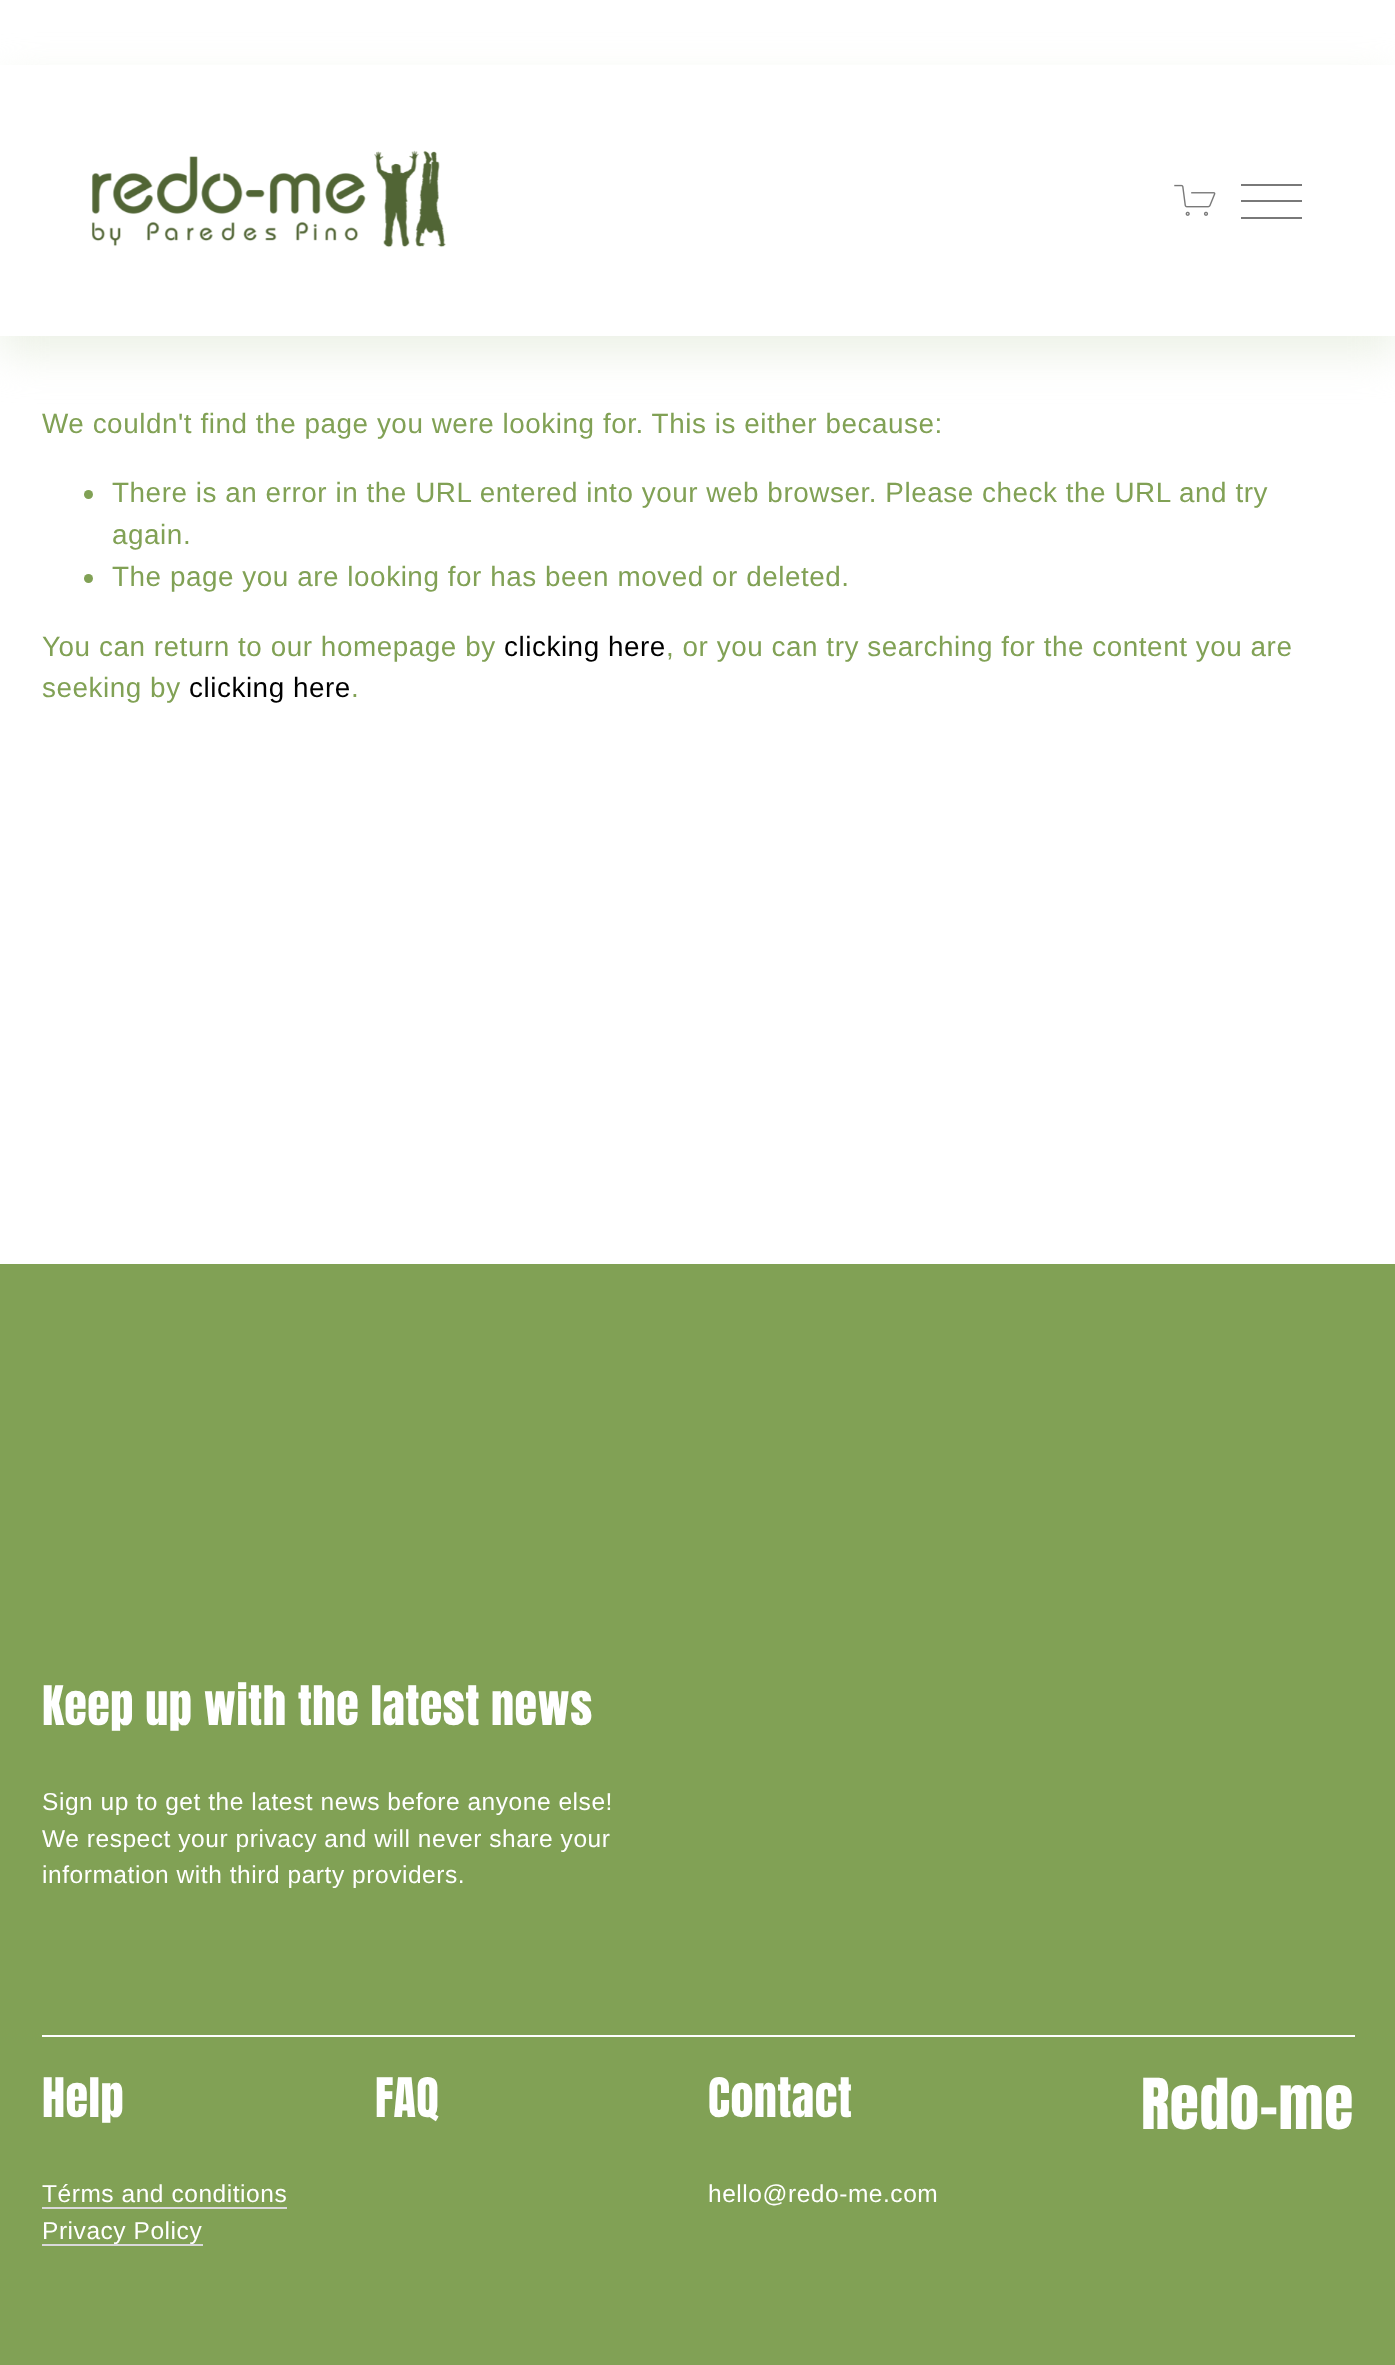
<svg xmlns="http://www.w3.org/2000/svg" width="1395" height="2365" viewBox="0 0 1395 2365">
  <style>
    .t1 { font: 27.85px Liberation Sans; letter-spacing: 0.55px; fill: #81a155; }
    .t2 { font: 27.85px Liberation Sans; letter-spacing: 0.55px; fill: #000; }
    .t3 { font: 46.25px Anton; letter-spacing: 0.45px; fill: #fff; }
    .t4 { font: 24.5px Liberation Sans; letter-spacing: 0.55px; fill: #fff; }
    .t5 { font: 59.5px Anton; letter-spacing: 0.5px; fill: #fff; }
  </style>
  <defs>
    <clipPath id="clip1"><path d="M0 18H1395V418H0ZM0 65H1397V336H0Z" clip-rule="evenodd"/></clipPath>
  </defs>
  <rect width="100%" height="100%" fill="#fff"/>
  <g clip-path="url(#clip1)">
    <rect x="0" y="82" width="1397" height="272" fill="#ecf1e6" filter="blur(21px)"/>
  </g>
  <image x="91" y="150" width="355" height="98" href="images/1.png"/>
  <image x="1174" y="184" width="42" height="32" href="images/2.png"/>
  <rect x="1241" y="184" width="61" height="2" fill="#797979"/>
  <rect x="1241" y="200" width="61" height="2" fill="#797979"/>
  <rect x="1241" y="217" width="61" height="2" fill="#797979"/>
  <text x="42" y="433" class="t1">We couldn't find the page you were looking for. This is either because:</text>
  <circle cx="88.5" cy="494.5" r="4.5" fill="#81a155"/>
  <text x="112" y="502" class="t1">There is an error in the URL entered into your web browser. Please check the URL and try</text>
  <text x="112" y="544" class="t1">again.</text>
  <circle cx="88.5" cy="578.5" r="4.5" fill="#81a155"/>
  <text x="112" y="586" class="t1">The page you are looking for has been moved or deleted.</text>
  <text x="42" y="656" class="t1">You can return to our homepage by</text>
  <text x="504" y="656" class="t2">clicking here</text>
  <text x="666" y="656" class="t1">, or you can try searching for the content you are</text>
  <text x="42" y="697" class="t1">seeking by</text>
  <text x="189" y="697" class="t2">clicking here</text>
  <text x="351" y="697" class="t1">.</text>
  <rect x="0" y="1264" width="1395" height="1101" fill="#81a155"/>
  <text x="42" y="1725" class="t3">Keep up with the latest news</text>
  <text x="42" y="1810" class="t4">Sign up to get the latest news before anyone else!</text>
  <text x="42" y="1847" class="t4">We respect your privacy and will never share your</text>
  <text x="42" y="1883" class="t4">information with third party providers.</text>
  <rect x="42" y="2035" width="1313" height="2" fill="#fff"/>
  <text x="42" y="2117" class="t3">Help</text>
  <text x="42" y="2202" class="t4">Térms and conditions</text>
  <rect x="42" y="2207" width="245" height="2" fill="#d9d9d9"/>
  <rect x="42" y="2244" width="161" height="2" fill="#d9d9d9"/>
  <text x="42" y="2239" class="t4">Privacy Policy</text>
  <text x="375" y="2117" class="t3">FAQ</text>
  <text x="708" y="2117" class="t3">Contact</text>
  <text x="708" y="2202" class="t4">hello@redo-me.com</text>
  <text x="1141" y="2129" class="t5">Redo-me</text>
</svg>
